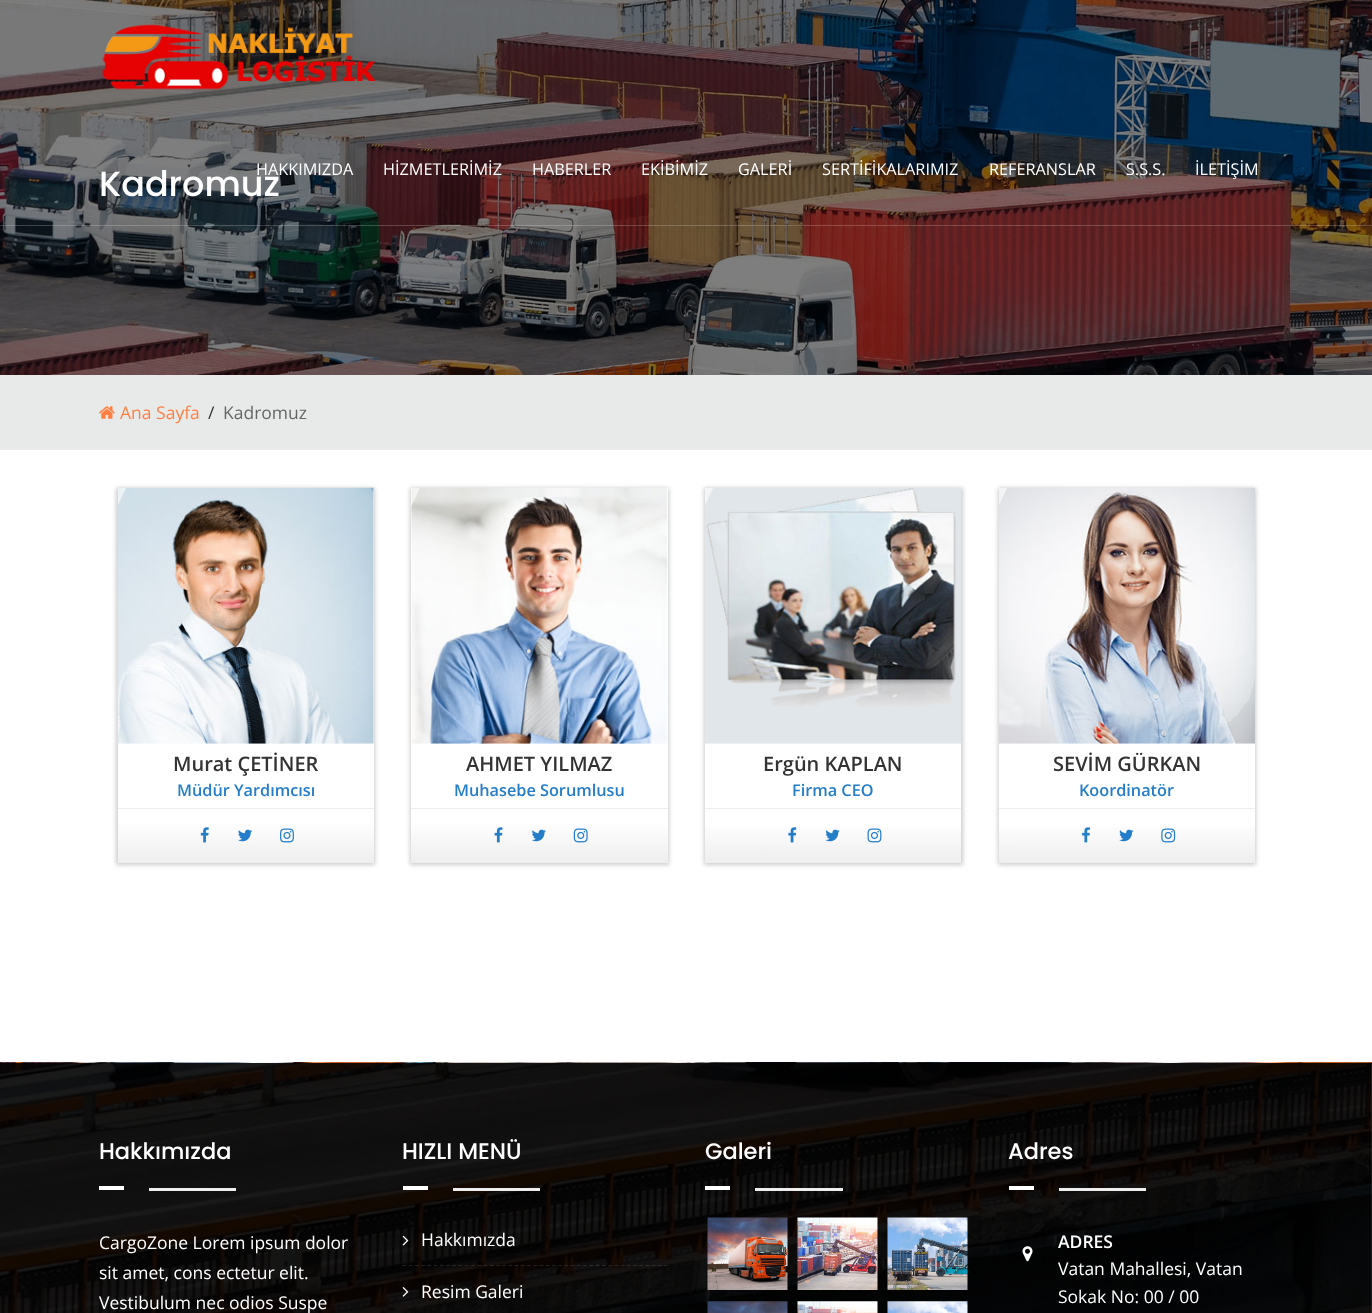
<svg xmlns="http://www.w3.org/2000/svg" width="1372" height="1313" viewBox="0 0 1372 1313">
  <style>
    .t1 { font: 500 35px Poppins; fill: #fff; }
    .t2 { font: 16.25px Open Sans; fill: #fff; }
    .t3 { font: 17.5px Open Sans; fill: #ff7f43; }
    .t4 { font: 17.5px Open Sans; fill: #333; }
    .t5 { font: 17.5px Open Sans; fill: #676767; }
    .t6 { font: 600 20px Open Sans; fill: #333; }
    .t7 { font: 600 16.25px Open Sans; fill: #237dc8; }
    .t8 { font: 500 22.5px Poppins; fill: #fff; }
    .t9 { font: 17.5px Open Sans; fill: #fff; }
    .t10 { font: 600 17.5px Open Sans; fill: #fff; }
  </style>
  <defs>
    <clipPath id="clip1"><path d="M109 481H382V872H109ZM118 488H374V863H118Z" clip-rule="evenodd"/></clipPath>
    <linearGradient id="g1" gradientUnits="userSpaceOnUse" x1="246" y1="821" x2="246" y2="863"><stop offset="0" stop-color="#fff"/><stop offset="1" stop-color="#eee"/></linearGradient>
    <clipPath id="clip2"><path d="M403 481H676V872H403ZM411 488H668V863H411Z" clip-rule="evenodd"/></clipPath>
    <clipPath id="clip3"><rect x="411" y="488" width="257" height="256"/></clipPath>
    <linearGradient id="g2" gradientUnits="userSpaceOnUse" x1="104" y1="616" x2="360" y2="616"><stop offset="0" stop-color="#fff" stop-opacity="0"/><stop offset="1" stop-color="#fff" stop-opacity="0.6"/></linearGradient>
    <linearGradient id="g3" gradientUnits="userSpaceOnUse" x1="539" y1="821" x2="539" y2="863"><stop offset="0" stop-color="#fff"/><stop offset="1" stop-color="#eee"/></linearGradient>
    <clipPath id="clip4"><path d="M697 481H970V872H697ZM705 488H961V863H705Z" clip-rule="evenodd"/></clipPath>
    <clipPath id="clip5"><rect x="705" y="488" width="256" height="256"/></clipPath>
    <linearGradient id="g4" gradientUnits="userSpaceOnUse" x1="398" y1="616" x2="654" y2="616"><stop offset="0" stop-color="#e1e6ea"/><stop offset="1" stop-color="#f3f5f7"/></linearGradient>
    <linearGradient id="g5" gradientUnits="userSpaceOnUse" x1="833" y1="821" x2="833" y2="863"><stop offset="0" stop-color="#fff"/><stop offset="1" stop-color="#eee"/></linearGradient>
    <clipPath id="clip6"><path d="M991 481H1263V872H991ZM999 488H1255V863H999Z" clip-rule="evenodd"/></clipPath>
    <linearGradient id="g6" gradientUnits="userSpaceOnUse" x1="1127" y1="821" x2="1127" y2="863"><stop offset="0" stop-color="#fff"/><stop offset="1" stop-color="#eee"/></linearGradient>
  </defs>
  <rect width="100%" height="100%" fill="#fff"/>
  <image x="0" y="0" width="1372" height="375" href="images/1.png"/>
  <text x="99" y="196" class="t1">Kadromuz</text>
  <rect x="0" y="225" width="1372" height="1" fill="#ffffff33"/>
  <image x="102" y="24" width="274" height="66" href="images/2.png"/>
  <text x="256" y="175" class="t2">HAKKIMIZDA</text>
  <text x="383" y="175" class="t2">HİZMETLERİMİZ</text>
  <text x="532" y="175" class="t2">HABERLER</text>
  <text x="641" y="175" class="t2">EKİBİMİZ</text>
  <text x="738" y="175" class="t2">GALERİ</text>
  <text x="822" y="175" class="t2">SERTİFİKALARIMIZ</text>
  <text x="989" y="175" class="t2">REFERANSLAR</text>
  <text x="1126" y="175" class="t2">S.S.S.</text>
  <text x="1195" y="175" class="t2">İLETİŞİM</text>
  <rect x="0" y="375" width="1372" height="75" fill="#e8e9e9"/>
  <image x="99" y="406" width="16" height="13" href="images/3.png"/>
  <text x="120" y="419" class="t3">Ana Sayfa</text>
  <text x="208" y="419" class="t4">/</text>
  <text x="223" y="419" class="t5">Kadromuz</text>
  <g clip-path="url(#clip1)">
    <rect x="116" y="488" width="259" height="377" fill="#00000033" filter="blur(2px)"/>
  </g>
  <image x="117" y="487" width="257" height="257" href="images/4.png"/>
  <text x="173" y="771" class="t6">Murat ÇETİNER</text>
  <rect x="118" y="808" width="256" height="1" fill="#82828224"/>
  <text x="177" y="796" class="t7">Müdür Yardımcısı</text>
  <rect x="118" y="821" width="256" height="42" fill="url(#g1)"/>
  <image x="200" y="827" width="9" height="16" href="images/5.png"/>
  <image x="238" y="829" width="14" height="13" href="images/6.png"/>
  <image x="280" y="828" width="14" height="15" href="images/7.png"/>
  <g clip-path="url(#clip2)">
    <rect x="410" y="488" width="259" height="377" fill="#00000033" filter="blur(2px)"/>
  </g>
  <image x="411" y="487" width="257" height="257" href="images/8.png"/>
  <g clip-path="url(#clip3)">
    <path d="M163 488H420L300 744H44Z" fill="url(#g2)"/>
  </g>
  <text x="466" y="771" class="t6">AHMET YILMAZ</text>
  <rect x="411" y="808" width="257" height="1" fill="#82828224"/>
  <text x="454" y="796" class="t7">Muhasebe Sorumlusu</text>
  <rect x="411" y="821" width="257" height="42" fill="url(#g3)"/>
  <image x="494" y="827" width="9" height="16" href="images/9.png"/>
  <image x="532" y="829" width="14" height="13" href="images/10.png"/>
  <image x="573" y="828" width="15" height="15" href="images/11.png"/>
  <g clip-path="url(#clip4)">
    <rect x="704" y="488" width="259" height="377" fill="#00000033" filter="blur(2px)"/>
  </g>
  <image x="705" y="487" width="256" height="257" href="images/12.png"/>
  <g clip-path="url(#clip5)">
    <path d="M457 488H713L594 744H338Z" fill="url(#g4)"/>
  </g>
  <text x="763" y="771" class="t6">Ergün KAPLAN</text>
  <rect x="705" y="808" width="256" height="1" fill="#eee"/>
  <text x="792" y="796" class="t7">Firma CEO</text>
  <rect x="705" y="827" width="256" height="36" fill="url(#g5)"/>
  <image x="788" y="827" width="9" height="16" href="images/13.png"/>
  <image x="825" y="829" width="15" height="13" href="images/14.png"/>
  <image x="867" y="828" width="15" height="15" href="images/15.png"/>
  <g clip-path="url(#clip6)">
    <rect x="998" y="488" width="258" height="377" fill="#00000033" filter="blur(2px)"/>
  </g>
  <image x="999" y="487" width="256" height="257" href="images/16.png"/>
  <text x="1053" y="771" class="t6">SEVİM GÜRKAN</text>
  <rect x="999" y="808" width="256" height="1" fill="#eee"/>
  <text x="1079" y="796" class="t7">Koordinatör</text>
  <rect x="999" y="827" width="256" height="36" fill="url(#g6)"/>
  <image x="1082" y="827" width="8" height="16" href="images/17.png"/>
  <image x="1119" y="829" width="15" height="13" href="images/18.png"/>
  <image x="1161" y="828" width="15" height="15" href="images/19.png"/>
  <image x="0" y="1062" width="1372" height="251" href="images/20.png"/>
  <text x="99" y="1159" class="t8">Hakkımızda</text>
  <rect x="99" y="1186" width="25" height="4" fill="#fff"/>
  <rect x="149" y="1188" width="87" height="3" fill="#eee"/>
  <text x="99" y="1249" class="t9">CargoZone Lorem ipsum dolor</text>
  <text x="99" y="1279" class="t9">sit amet, cons ectetur elit.</text>
  <text x="99" y="1309" class="t9">Vestibulum nec odios Suspe</text>
  <text x="402" y="1159" class="t8">HIZLI MENÜ</text>
  <rect x="403" y="1186" width="25" height="4" fill="#fff"/>
  <rect x="453" y="1188" width="87" height="3" fill="#eee"/>
  <path d="M402.5 1265.5H667.5" fill="none" stroke="#6666664d" stroke-width="1.2" stroke-dasharray="3.75 2.48"/>
  <image x="402" y="1235" width="7" height="11" href="images/21.png"/>
  <text x="421" y="1246" class="t9">Hakkımızda</text>
  <image x="402" y="1287" width="7" height="10" href="images/22.png"/>
  <text x="421" y="1298" class="t9">Resim Galeri</text>
  <text x="705" y="1159" class="t8">Galeri</text>
  <rect x="705" y="1186" width="25" height="4" fill="#fff"/>
  <rect x="755" y="1188" width="88" height="3" fill="#eee"/>
  <image x="707" y="1217" width="81" height="73" href="images/23.png"/>
  <image x="797" y="1217" width="81" height="73" href="images/24.png"/>
  <image x="887" y="1217" width="81" height="73" href="images/25.png"/>
  <image x="707" y="1301" width="81" height="12" href="images/26.png"/>
  <image x="797" y="1301" width="81" height="12" href="images/27.png"/>
  <image x="887" y="1301" width="81" height="12" href="images/28.png"/>
  <text x="1008" y="1159" class="t8">Adres</text>
  <rect x="1009" y="1186" width="25" height="4" fill="#fff"/>
  <rect x="1059" y="1188" width="87" height="3" fill="#eee"/>
  <rect x="1017" y="1234" width="28" height="12" fill="#00000033"/>
  <rect x="1009.5" y="1234.5" width="36" height="36" fill="none" stroke="#0000004d"/>
  <image x="1022" y="1246" width="11" height="16" href="images/29.png"/>
  <text x="1058" y="1248" class="t10">ADRES</text>
  <text x="1058" y="1275" class="t9">Vatan Mahallesi, Vatan</text>
  <text x="1058" y="1303" class="t9">Sokak No: 00 / 00</text>
</svg>
